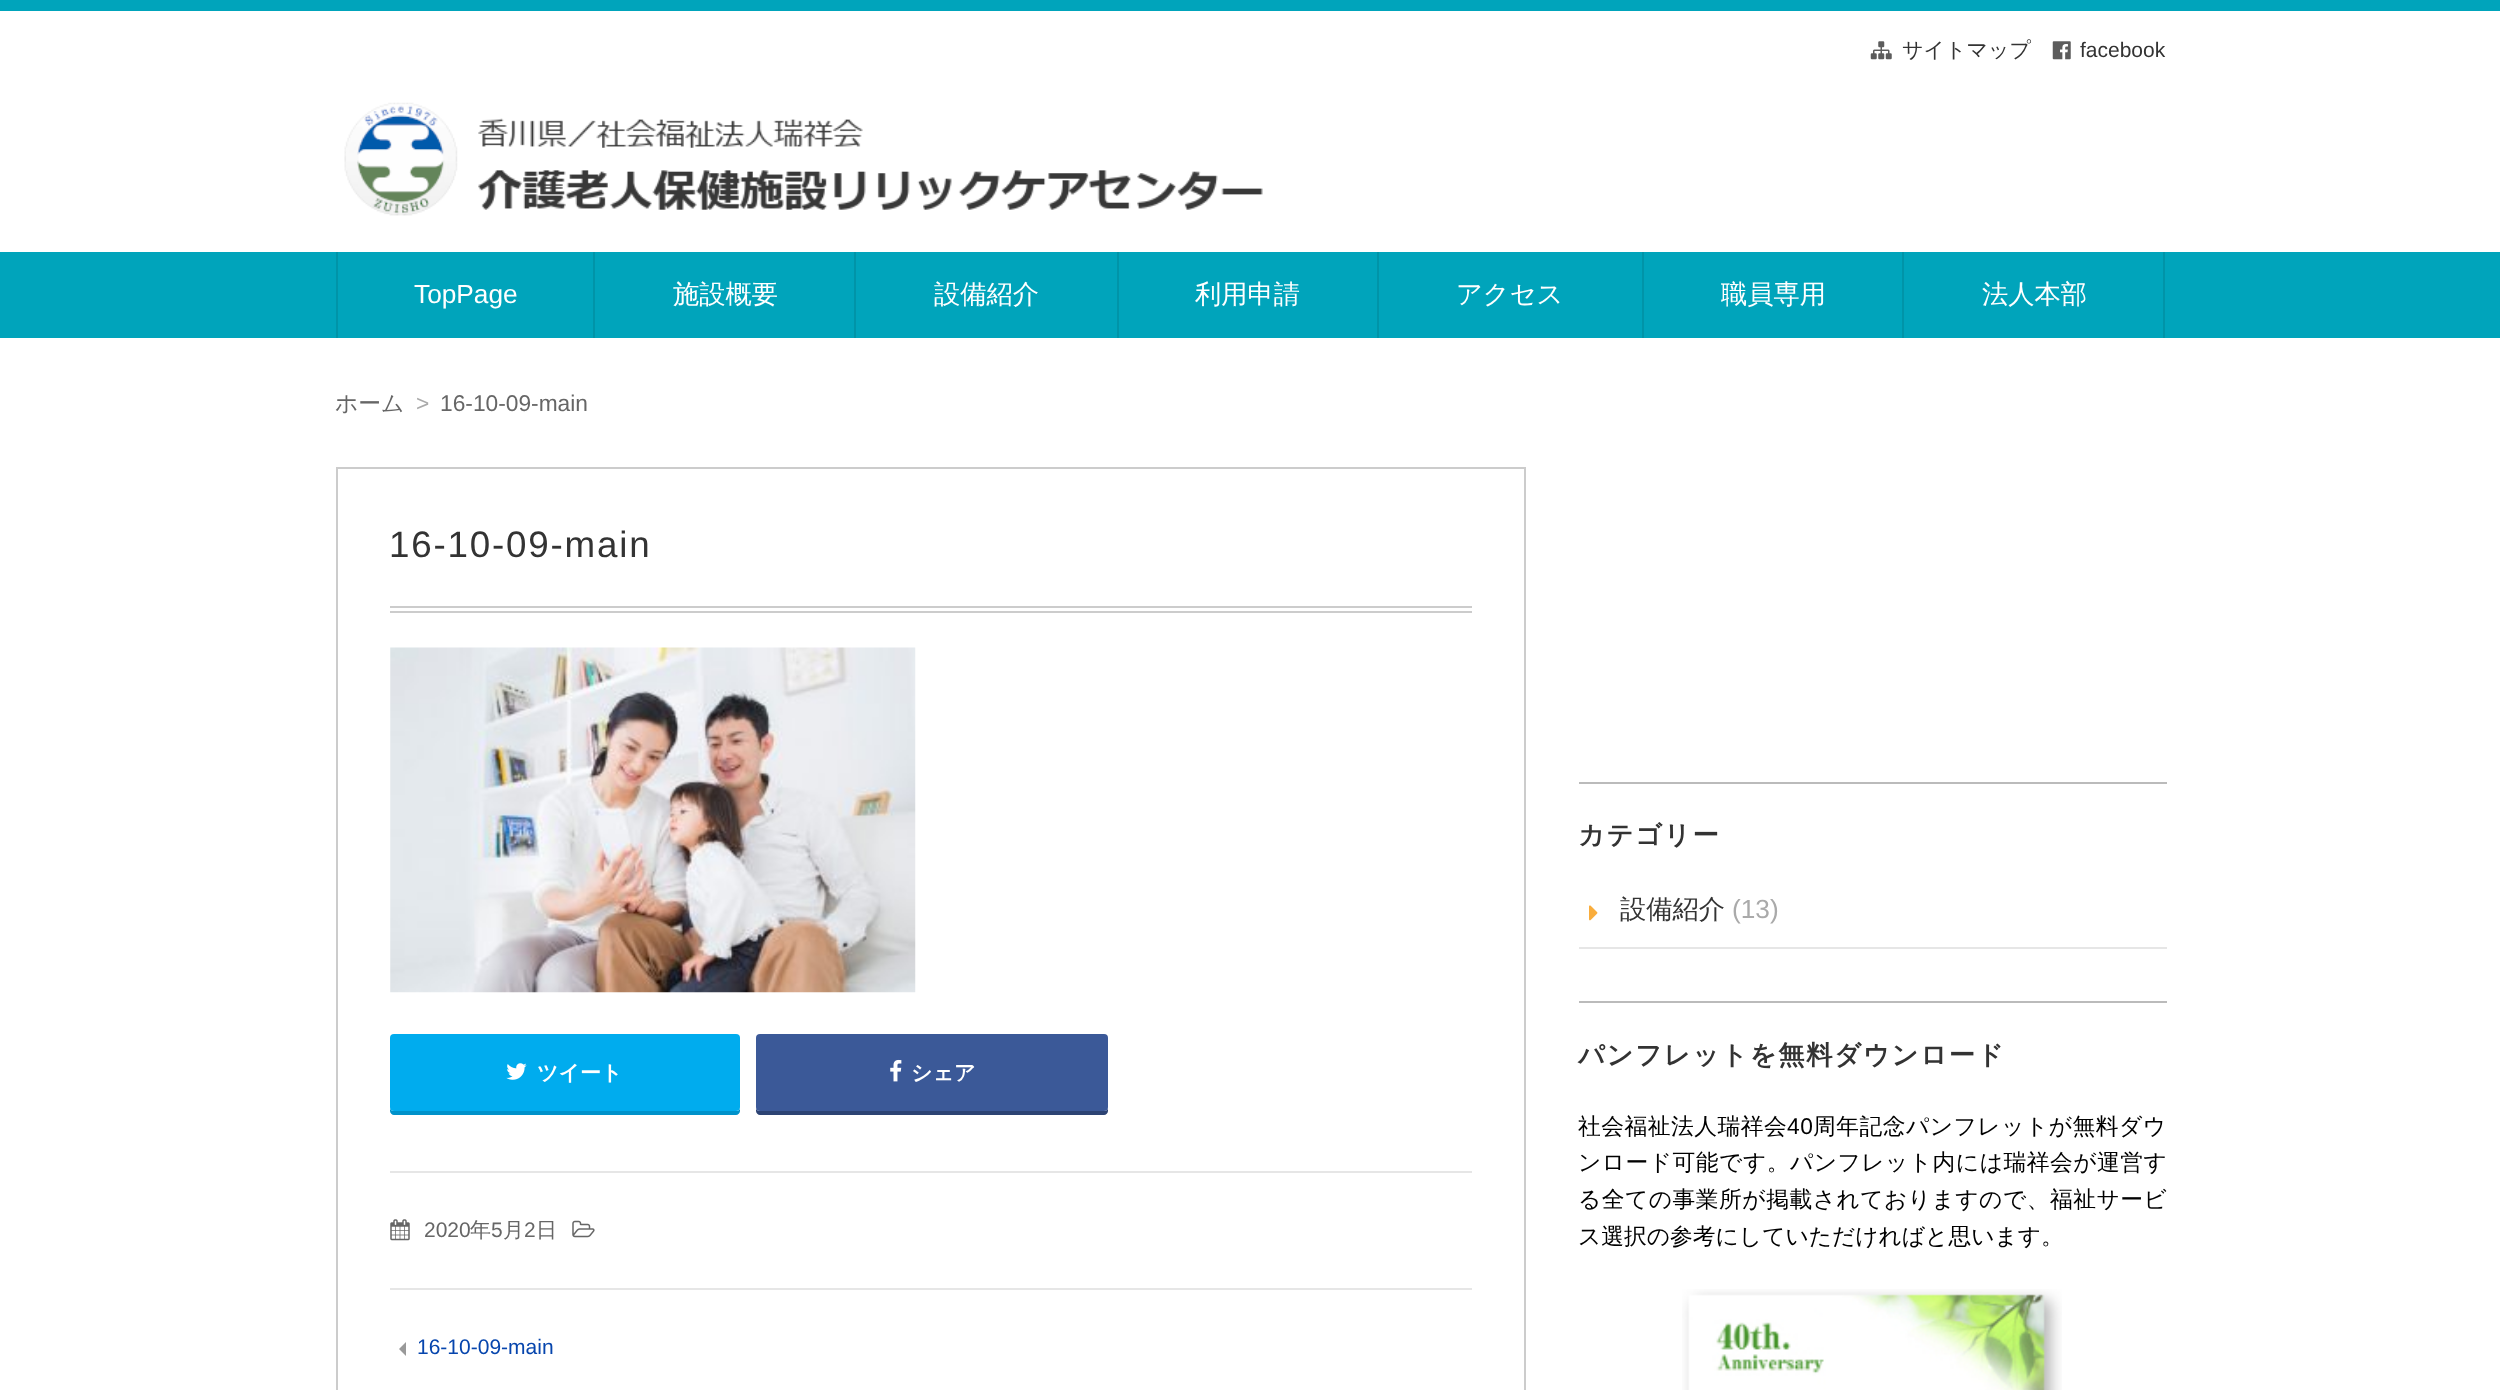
<svg xmlns="http://www.w3.org/2000/svg" width="2500" height="1390" viewBox="0 0 2500 1390">
  <style>
    .t1 { font: 500 21px WenQuanYi Zen Hei; fill: #333; }
    .t2 { font: 21px Liberation Sans; fill: #333; }
    .t3 { font: 26.25px Liberation Sans; fill: #fff; }
    .t4 { font: 500 26.25px WenQuanYi Zen Hei; fill: #fff; }
    .t5 { font: 500 22.75px WenQuanYi Zen Hei; fill: #666; }
    .t6 { font: 22.75px Liberation Sans; fill: #aaa; }
    .t7 { font: 22.75px Liberation Sans; fill: #666; }
    .t8 { font: 36.75px Liberation Sans; letter-spacing: 1.8px; fill: #333; }
    .t9 { font: bold 21px WenQuanYi Zen Hei; fill: #fff; }
    .t10 { font: 21px Liberation Sans; fill: #666; }
    .t11 { font: 500 21px WenQuanYi Zen Hei; fill: #666; }
    .t12 { font: 21px Liberation Sans; fill: #0645ad; }
    .t13 { font: bold 26.25px WenQuanYi Zen Hei; letter-spacing: 1.75px; fill: #333; }
    .t14 { font: 500 26.25px WenQuanYi Zen Hei; fill: #333; }
    .t15 { font: 26.25px Liberation Sans; fill: #aaa; }
    .t16 { font: 500 22.75px WenQuanYi Zen Hei; letter-spacing: 0.5px; fill: #000; }
    .t17 { font: 22.75px Liberation Sans; letter-spacing: 0.5px; fill: #000; }
    .t18 { font: 500 22.75px WenQuanYi Zen Hei; fill: #000; }
  </style>
  <rect width="100%" height="100%" fill="#fff"/>
  <rect x="0" y="0" width="2500" height="11" fill="#00a4bb"/>
  <image x="1870" y="41" width="22" height="19" href="images/1.png"/>
  <text x="1902" y="57" class="t1">サイトマップ</text>
  <image x="2052" y="41" width="19" height="19" href="images/2.png"/>
  <text x="2080" y="57" class="t2">facebook</text>
  <image x="344" y="102" width="919" height="114" href="images/3.png"/>
  <rect x="0" y="252" width="2500" height="86" fill="#00a4bb"/>
  <rect x="336" y="252" width="2" height="86" fill="#0094a8"/>
  <rect x="593" y="252" width="2" height="86" fill="#0094a8"/>
  <text x="414" y="303" class="t3">TopPage</text>
  <rect x="854" y="252" width="2" height="86" fill="#0094a8"/>
  <text x="673" y="303" class="t4">施設概要</text>
  <rect x="1117" y="252" width="2" height="86" fill="#0094a8"/>
  <text x="934" y="303" class="t4">設備紹介</text>
  <rect x="1377" y="252" width="2" height="86" fill="#0094a8"/>
  <text x="1195" y="303" class="t4">利用申請</text>
  <rect x="1642" y="252" width="2" height="86" fill="#0094a8"/>
  <text x="1456" y="303" class="t4">アクセス</text>
  <rect x="1902" y="252" width="2" height="86" fill="#0094a8"/>
  <text x="1721" y="303" class="t4">職員専用</text>
  <rect x="2163" y="252" width="2" height="86" fill="#0094a8"/>
  <text x="1982" y="303" class="t4">法人本部</text>
  <text x="335" y="411" class="t5">ホーム</text>
  <text x="416" y="411" class="t6">&gt;</text>
  <text x="440" y="411" class="t7">16-10-09-main</text>
  <rect x="337" y="468" width="1188" height="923" fill="none" stroke="#ccc" stroke-width="2"/>
  <rect x="390" y="606" width="1082" height="2" fill="#ccc"/>
  <rect x="390" y="611" width="1082" height="2" fill="#ccc"/>
  <text x="389" y="557" class="t8">16-10-09-main</text>
  <image x="390" y="647" width="526" height="346" href="images/4.png"/>
  <path d="M390 1041V1111C390 1113 392 1115 394 1115H736C738 1115 740 1113 740 1111V1109C739 1110 738 1111 737 1111H394C392 1111 390 1110 390 1108Z" fill="#0092ca"/>
  <rect x="390" y="1034" width="350" height="77" rx="4" fill="#00acee"/>
  <image x="506" y="1063" width="21" height="17" href="images/5.png"/>
  <text x="537" y="1080" class="t9">ツイート</text>
  <path d="M756 1108V1111C756 1113 758 1115 760 1115H1104C1106 1115 1108 1113 1108 1111V1041V1108C1108 1110 1106 1111 1104 1111H760C758 1111 756 1110 756 1108Z" fill="#2c4373"/>
  <rect x="756" y="1034" width="352" height="77" rx="4" fill="#3b5998"/>
  <image x="890" y="1059" width="12" height="23" href="images/6.png"/>
  <text x="911" y="1080" class="t9">シェア</text>
  <rect x="390" y="1171" width="1082" height="2" fill="#e6e6e6"/>
  <image x="390" y="1219" width="20" height="22" href="images/7.png"/>
  <text x="424" y="1237" class="t10">2020</text>
  <text x="470" y="1237" class="t11">年</text>
  <text x="491" y="1237" class="t10">5</text>
  <text x="503" y="1237" class="t11">月</text>
  <text x="524" y="1237" class="t10">2</text>
  <text x="536" y="1237" class="t11">日</text>
  <image x="572" y="1220" width="23" height="18" href="images/8.png"/>
  <rect x="390" y="1288" width="1082" height="2" fill="#e6e6e6"/>
  <path d="M406 1342V1356L399 1349Z" fill="#999"/>
  <text x="417" y="1354" class="t12">16-10-09-main</text>
  <rect x="1579" y="782" width="588" height="2" fill="#bbb"/>
  <text x="1578" y="844" class="t13">カテゴリー</text>
  <rect x="1579" y="947" width="588" height="2" fill="#e6e6e6"/>
  <image x="1589" y="905" width="9" height="16" href="images/9.png"/>
  <text x="1620" y="918" class="t14">設備紹介</text>
  <text x="1732" y="918" class="t15">(13)</text>
  <rect x="1579" y="1001" width="588" height="2" fill="#bbb"/>
  <text x="1578" y="1064" class="t13">パンフレットを無料ダウンロード</text>
  <text x="1578" y="1134" class="t16">社会福祉法人瑞祥会</text>
  <text x="1787" y="1134" class="t17">40</text>
  <text x="1813" y="1134" class="t16">周年記念パンフレットが無料ダウ</text>
  <text x="1578" y="1170" class="t16">ンロード可能です。パンフレット内には瑞祥会が運営す</text>
  <text x="1578" y="1207" class="t16">る全ての事業所が掲載されておりますので、福祉サービ</text>
  <text x="1578" y="1244" class="t18">ス選択の参考にしていただければと思います。</text>
  <image x="1682" y="1289" width="380" height="101" href="images/10.png"/>
</svg>
